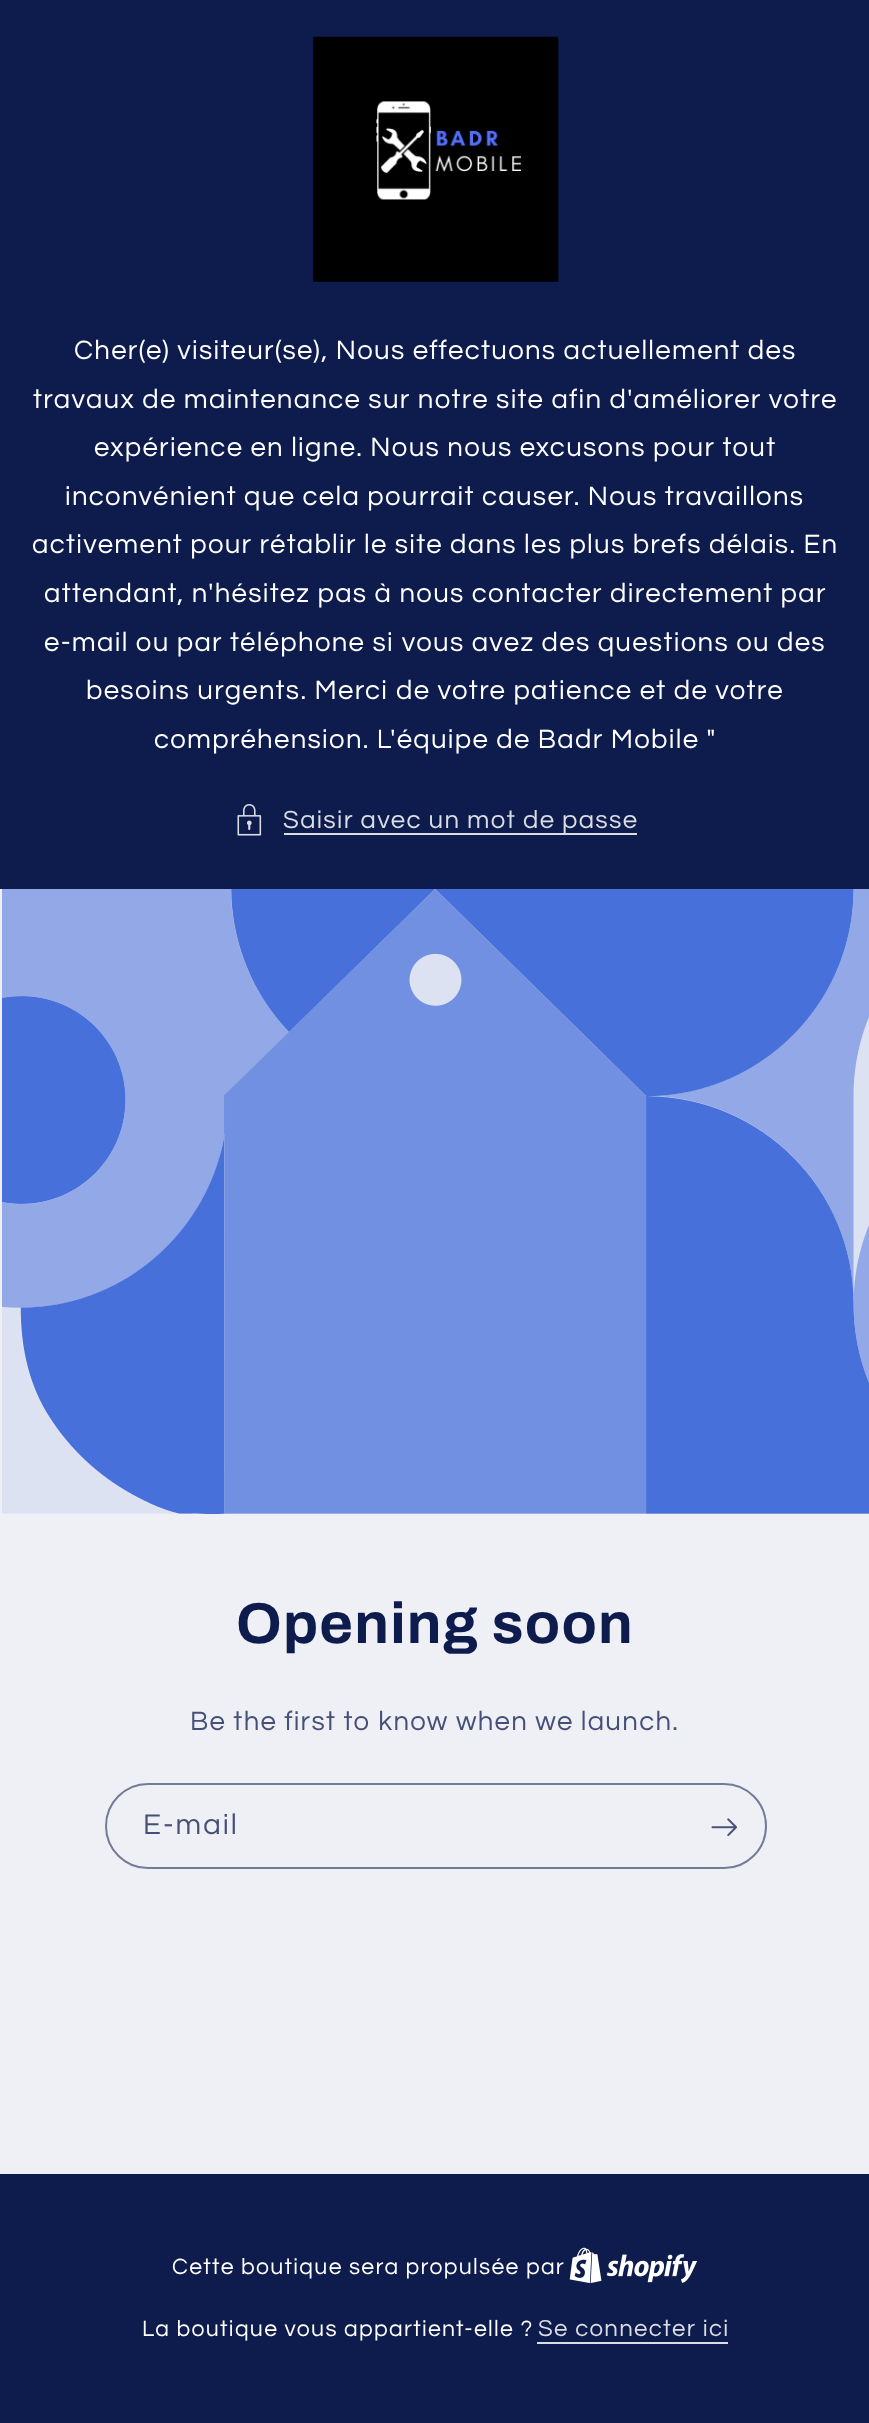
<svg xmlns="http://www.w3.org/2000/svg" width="869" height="2423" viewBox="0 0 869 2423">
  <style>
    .t1 { font: 27.55px Questrial; letter-spacing: 1.3px; fill: #fff; }
    .t2 { font: 25.75px Questrial; letter-spacing: 1.3px; fill: #dbdde4; }
    .t3 { font: bold 57.75px Archivo; letter-spacing: 1.2px; fill: #0e1b4d; }
    .t4 { font: 27.55px Questrial; letter-spacing: 1.3px; fill: #465077; }
    .t5 { font: 29.5px Questrial; letter-spacing: 2px; fill: #465077; }
    .t6 { font: 23px Questrial; letter-spacing: 1.3px; fill: #fff; }
    .t7 { font: 24px Questrial; letter-spacing: 1.3px; fill: #dbdde4; }
  </style>
  <rect width="100%" height="100%" fill="#eff0f5"/>
  <rect x="0" y="0" width="869" height="889" fill="#0e1b4d"/>
  <image x="313" y="36" width="246" height="246" href="images/1.png"/>
  <text x="74" y="359" class="t1">Cher(e) visiteur(se), Nous effectuons actuellement des</text>
  <text x="33" y="408" class="t1">travaux de maintenance sur notre site afin d'améliorer votre</text>
  <text x="94" y="456" class="t1">expérience en ligne. Nous nous excusons pour tout</text>
  <text x="65" y="505" class="t1">inconvénient que cela pourrait causer. Nous travaillons</text>
  <text x="32" y="553" class="t1">activement pour rétablir le site dans les plus brefs délais. En</text>
  <text x="44" y="602" class="t1">attendant, n'hésitez pas à nous contacter directement par</text>
  <text x="44" y="651" class="t1">e-mail ou par téléphone si vous avez des questions ou des</text>
  <text x="86" y="699" class="t1">besoins urgents. Merci de votre patience et de votre</text>
  <text x="154" y="748" class="t1">compréhension. L'équipe de Badr Mobile "</text>
  <image x="237" y="804" width="25" height="32" href="images/2.png"/>
  <rect x="284" y="833" width="353" height="2" fill="#dbdde4"/>
  <text x="283" y="828" class="t2">Saisir avec un mot de passe</text>
  <image x="2" y="889" width="867" height="625" href="images/3.png"/>
  <text x="236" y="1643" class="t3">Opening soon</text>
  <text x="190" y="1730" class="t4">Be the first to know when we launch.</text>
  <rect x="106" y="1784" width="660" height="84" rx="42" fill="none" stroke="#737b99" stroke-width="2"/>
  <text x="143" y="1834" class="t5">E-mail</text>
  <image x="711" y="1818" width="26" height="18" href="images/4.png"/>
  <rect x="0" y="2174" width="869" height="249" fill="#0e1b4d"/>
  <text x="172" y="2274" class="t6">Cette boutique sera propulsée par</text>
  <image x="569" y="2247" width="129" height="37" href="images/5.png"/>
  <text x="142" y="2336" class="t6">La boutique vous appartient-elle ?</text>
  <text x="538" y="2336" class="t7">Se connecter ici</text>
  <rect x="537" y="2342" width="191" height="2" fill="#dbdde4"/>
</svg>
